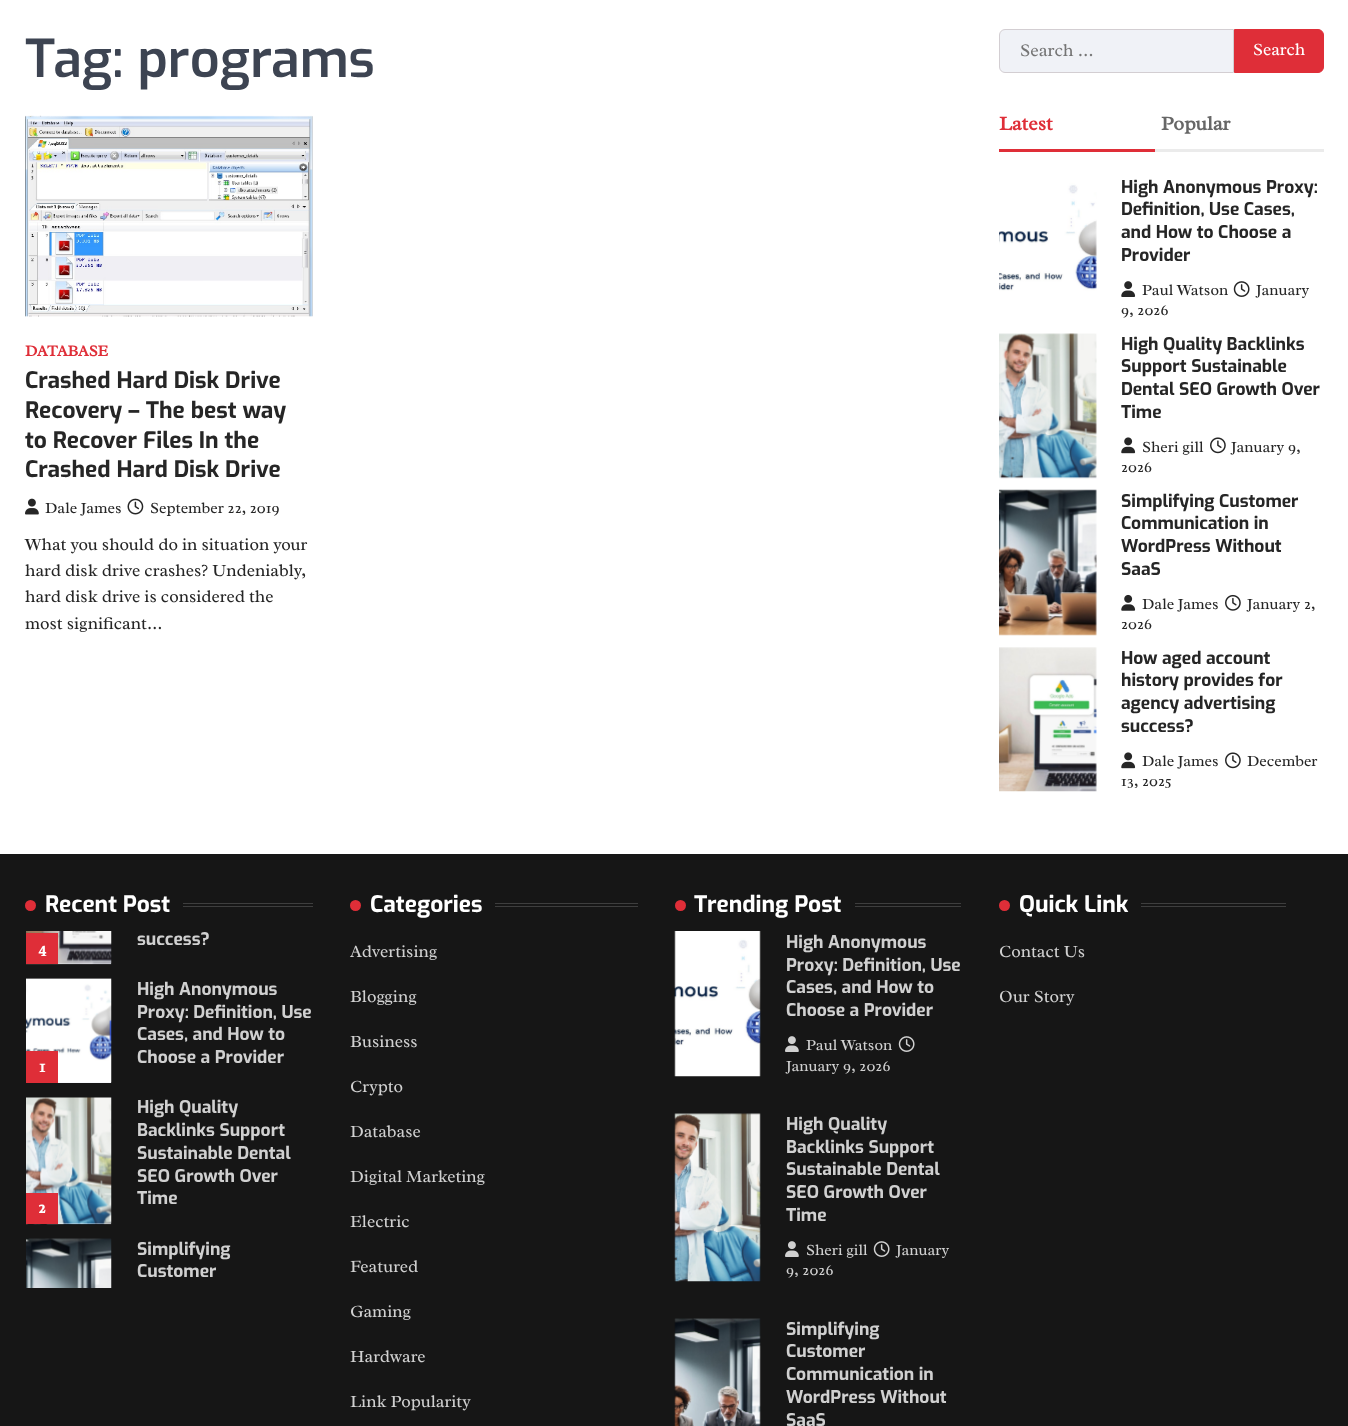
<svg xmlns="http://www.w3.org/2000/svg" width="1348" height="1426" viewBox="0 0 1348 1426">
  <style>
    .t1 { font: 600 52.25px Exo; fill: #3d4452; }
    .t2 { font: bold 15.75px Radley; fill: #df2e38; }
    .t3 { font: bold 22.75px Exo; fill: #262626; }
    .t4 { font: 15.75px Radley; fill: #262626; }
    .t5 { font: 17.5px Radley; fill: #262626; }
    .t6 { font: 18px Radley; fill: #757575; }
    .t7 { font: 17.5px Radley; fill: #fff; }
    .t8 { font: bold 20px Radley; fill: #df2e38; }
    .t9 { font: bold 20px Radley; fill: #676767; }
    .t10 { font: bold 17.5px Exo; fill: #262626; }
    .t11 { font: bold 22.75px Exo; fill: #fff; }
    .t12 { font: bold 17.5px Exo; fill: #d0d0d0; }
    .t13 { font: bold 17.5px Radley; fill: #fff; }
    .t14 { font: 17.5px Radley; fill: #d0d0d0; }
    .t15 { font: 15.75px Radley; fill: #d0d0d0; }
  </style>
  <rect width="100%" height="100%" fill="#fff"/>
  <text x="25" y="77" class="t1">Tag: programs</text>
  <rect x="25" y="116" width="288" height="200" fill="#f0f2f7"/>
  <image x="25" y="115" width="288" height="202" href="images/1.png"/>
  <text x="25" y="356" class="t2">DATABASE</text>
  <text x="25" y="388" class="t3">Crashed Hard Disk Drive</text>
  <text x="25" y="418" class="t3">Recovery – The best way</text>
  <text x="25" y="448" class="t3">to Recover Files In the</text>
  <text x="25" y="477" class="t3">Crashed Hard Disk Drive</text>
  <image x="25" y="498" width="14" height="17" href="images/2.png"/>
  <text x="45" y="513" class="t4">Dale James</text>
  <image x="127" y="498" width="17" height="17" href="images/3.png"/>
  <text x="150" y="513" class="t4">September 22, 2019</text>
  <text x="25" y="550" class="t5">What you should do in situation your</text>
  <text x="25" y="576" class="t5">hard disk drive crashes? Undeniably,</text>
  <text x="25" y="602" class="t5">hard disk drive is considered the</text>
  <text x="25" y="629" class="t5">most significant…</text>
  <path d="M1005 29.5H1233.5V72.5H1005C1002 72.5 999.5 70 999.5 67V35C999.5 32 1002 29.5 1005 29.5Z" fill="#f0f2f7" stroke="#d3ced2"/>
  <text x="1020" y="56" class="t6">Search …</text>
  <path d="M1234.5 29.5H1318C1321 29.5 1323.5 32 1323.5 35V67C1323.5 70 1321 72.5 1318 72.5H1234.5Z" fill="#df2e38" stroke="#df2e38"/>
  <text x="1253" y="55" class="t7">Search</text>
  <rect x="999" y="149" width="156" height="3" fill="#df2e38"/>
  <text x="999" y="130" class="t8">Latest</text>
  <text x="1161" y="130" class="t9">Popular</text>
  <rect x="1155" y="149" width="169" height="3" fill="#ebebeb"/>
  <image x="999" y="176" width="98" height="145" href="images/4.png"/>
  <text x="1121" y="193" class="t10">High Anonymous Proxy:</text>
  <text x="1121" y="215" class="t10">Definition, Use Cases,</text>
  <text x="1121" y="238" class="t10">and How to Choose a</text>
  <text x="1121" y="261" class="t10">Provider</text>
  <image x="1233" y="281" width="17" height="16" href="images/5.png"/>
  <text x="1256" y="295" class="t4">January</text>
  <text x="1121" y="315" class="t4">9, 2026</text>
  <image x="1121" y="281" width="15" height="16" href="images/6.png"/>
  <text x="1142" y="295" class="t4">Paul Watson</text>
  <rect x="999" y="334" width="97" height="144" fill="#f0f2f7"/>
  <image x="999" y="333" width="98" height="146" href="images/7.png"/>
  <text x="1121" y="350" class="t10">High Quality Backlinks</text>
  <text x="1121" y="372" class="t10">Support Sustainable</text>
  <text x="1121" y="395" class="t10">Dental SEO Growth Over</text>
  <text x="1121" y="418" class="t10">Time</text>
  <image x="1210" y="437" width="16" height="17" href="images/8.png"/>
  <text x="1231" y="452" class="t4">January 9,</text>
  <text x="1121" y="472" class="t4">2026</text>
  <image x="1121" y="437" width="15" height="17" href="images/9.png"/>
  <text x="1142" y="452" class="t4">Sheri gill</text>
  <image x="999" y="489" width="98" height="147" href="images/10.png"/>
  <text x="1121" y="507" class="t10">Simplifying Customer</text>
  <text x="1121" y="529" class="t10">Communication in</text>
  <text x="1121" y="552" class="t10">WordPress Without</text>
  <text x="1121" y="575" class="t10">SaaS</text>
  <image x="1225" y="594" width="16" height="17" href="images/11.png"/>
  <text x="1247" y="609" class="t4">January 2,</text>
  <text x="1121" y="629" class="t4">2026</text>
  <image x="1121" y="594" width="15" height="17" href="images/12.png"/>
  <text x="1142" y="609" class="t4">Dale James</text>
  <image x="999" y="647" width="98" height="145" href="images/13.png"/>
  <text x="1121" y="664" class="t10">How aged account</text>
  <text x="1121" y="686" class="t10">history provides for</text>
  <text x="1121" y="709" class="t10">agency advertising</text>
  <text x="1121" y="732" class="t10">success?</text>
  <image x="1225" y="752" width="16" height="17" href="images/8.png"/>
  <text x="1247" y="766" class="t4">December</text>
  <text x="1121" y="786" class="t4">13, 2025</text>
  <image x="1121" y="752" width="15" height="17" href="images/9.png"/>
  <text x="1142" y="766" class="t4">Dale James</text>
  <rect x="0" y="854" width="1348" height="572" fill="#161616"/>
  <circle cx="30.5" cy="905.5" r="5.5" fill="#df2e38"/>
  <text x="45" y="912" class="t11">Recent Post</text>
  <rect x="183" y="903" width="130" height="1" fill="#3e3e3e"/>
  <rect x="183" y="906" width="130" height="1" fill="#3e3e3e"/>
  <text x="137" y="945" class="t12">success?</text>
  <rect x="58" y="963" width="53" height="1" fill="#f0f2f7"/>
  <image x="26" y="931" width="86" height="34" href="images/14.png"/>
  <rect x="26" y="933" width="32" height="31" fill="#df2e38"/>
  <text x="38" y="954" class="t13">4</text>
  <text x="137" y="995" class="t12">High Anonymous</text>
  <text x="137" y="1018" class="t12">Proxy: Definition, Use</text>
  <text x="137" y="1040" class="t12">Cases, and How to</text>
  <text x="137" y="1063" class="t12">Choose a Provider</text>
  <rect x="26" y="979" width="85" height="104" fill="#f0f2f7"/>
  <image x="26" y="978" width="86" height="105" href="images/15.png"/>
  <rect x="26" y="1051" width="32" height="32" fill="#df2e38"/>
  <text x="39" y="1072" class="t13">1</text>
  <text x="137" y="1113" class="t12">High Quality</text>
  <text x="137" y="1136" class="t12">Backlinks Support</text>
  <text x="137" y="1159" class="t12">Sustainable Dental</text>
  <text x="137" y="1182" class="t12">SEO Growth Over</text>
  <text x="137" y="1204" class="t12">Time</text>
  <rect x="58" y="1223" width="53" height="1" fill="#f0f2f7"/>
  <image x="26" y="1097" width="86" height="128" href="images/16.png"/>
  <rect x="26" y="1193" width="32" height="31" fill="#df2e38"/>
  <text x="38" y="1213" class="t13">2</text>
  <image x="26" y="1238" width="86" height="50" href="images/17.png"/>
  <text x="137" y="1255" class="t12">Simplifying</text>
  <text x="137" y="1277" class="t12">Customer</text>
  <circle cx="355.5" cy="905.5" r="5.5" fill="#df2e38"/>
  <text x="370" y="912" class="t11">Categories</text>
  <rect x="495" y="903" width="143" height="1" fill="#3e3e3e"/>
  <rect x="495" y="906" width="143" height="1" fill="#3e3e3e"/>
  <text x="350" y="957" class="t14">Advertising</text>
  <text x="350" y="1002" class="t14">Blogging</text>
  <text x="350" y="1047" class="t14">Business</text>
  <text x="350" y="1092" class="t14">Crypto</text>
  <text x="350" y="1137" class="t14">Database</text>
  <text x="350" y="1182" class="t14">Digital Marketing</text>
  <text x="350" y="1227" class="t14">Electric</text>
  <text x="350" y="1272" class="t14">Featured</text>
  <text x="350" y="1317" class="t14">Gaming</text>
  <text x="350" y="1362" class="t14">Hardware</text>
  <text x="350" y="1407" class="t14">Link Popularity</text>
  <circle cx="680.5" cy="905.5" r="5.5" fill="#df2e38"/>
  <text x="694" y="912" class="t11">Trending Post</text>
  <rect x="855" y="903" width="106" height="1" fill="#3e3e3e"/>
  <rect x="855" y="906" width="106" height="1" fill="#3e3e3e"/>
  <image x="674" y="931" width="87" height="146" href="images/18.png"/>
  <text x="786" y="948" class="t12">High Anonymous</text>
  <text x="786" y="971" class="t12">Proxy: Definition, Use</text>
  <text x="786" y="993" class="t12">Cases, and How to</text>
  <text x="786" y="1016" class="t12">Choose a Provider</text>
  <image x="785" y="1036" width="14" height="16" href="images/19.png"/>
  <text x="806" y="1050" class="t15">Paul Watson</text>
  <image x="898" y="1036" width="17" height="16" href="images/20.png"/>
  <text x="786" y="1071" class="t15">January 9, 2026</text>
  <image x="674" y="1113" width="87" height="169" href="images/21.png"/>
  <text x="786" y="1130" class="t12">High Quality</text>
  <text x="786" y="1153" class="t12">Backlinks Support</text>
  <text x="786" y="1175" class="t12">Sustainable Dental</text>
  <text x="786" y="1198" class="t12">SEO Growth Over</text>
  <text x="786" y="1221" class="t12">Time</text>
  <image x="873" y="1241" width="17" height="16" href="images/20.png"/>
  <text x="896" y="1255" class="t15">January</text>
  <text x="786" y="1275" class="t15">9, 2026</text>
  <image x="785" y="1241" width="14" height="16" href="images/19.png"/>
  <text x="806" y="1255" class="t15">Sheri gill</text>
  <image x="674" y="1318" width="87" height="108" href="images/22.png"/>
  <text x="786" y="1335" class="t12">Simplifying</text>
  <text x="786" y="1357" class="t12">Customer</text>
  <text x="786" y="1380" class="t12">Communication in</text>
  <text x="786" y="1403" class="t12">WordPress Without</text>
  <text x="786" y="1426" class="t12">SaaS</text>
  <circle cx="1004.5" cy="905.5" r="5.5" fill="#df2e38"/>
  <text x="1019" y="912" class="t11">Quick Link</text>
  <rect x="1141" y="903" width="145" height="1" fill="#3e3e3e"/>
  <rect x="1141" y="906" width="145" height="1" fill="#3e3e3e"/>
  <text x="999" y="957" class="t14">Contact Us</text>
  <text x="999" y="1002" class="t14">Our Story</text>
</svg>
